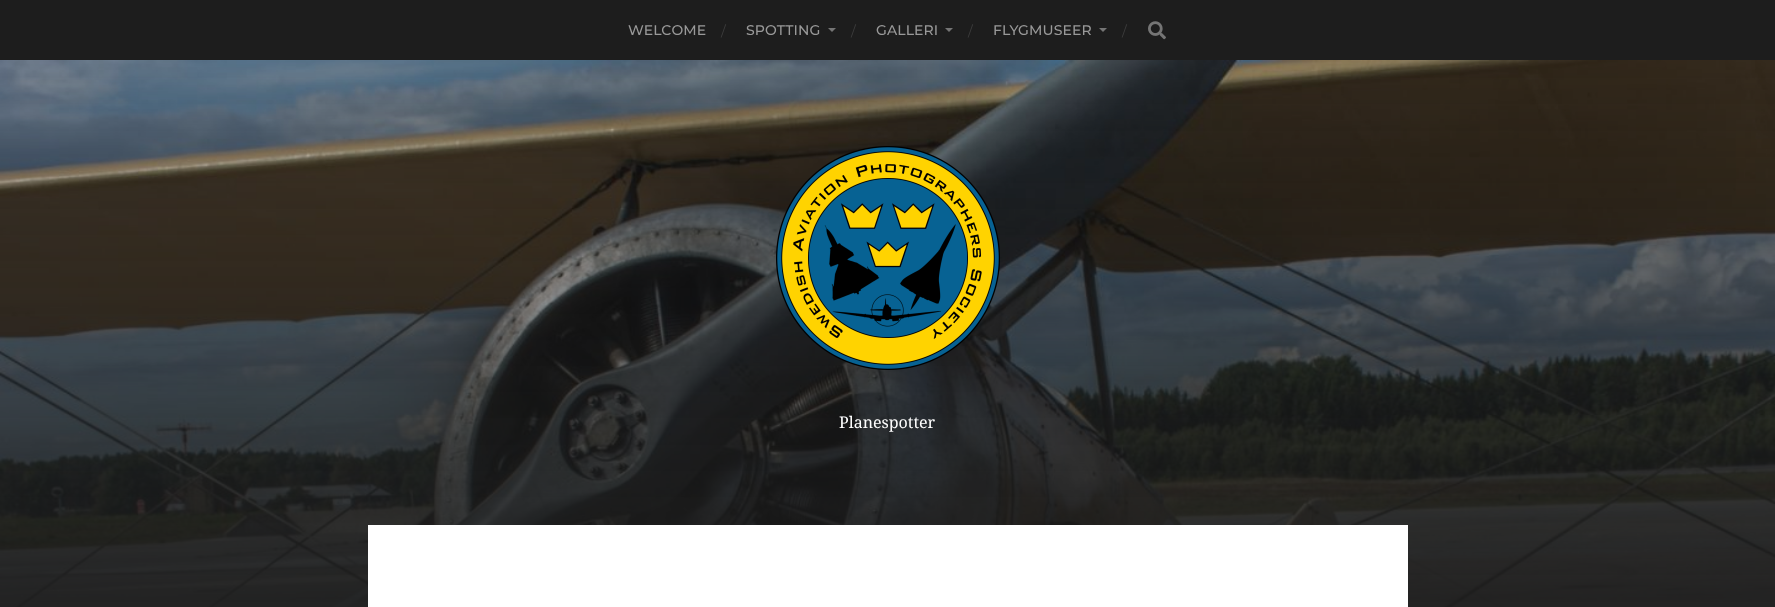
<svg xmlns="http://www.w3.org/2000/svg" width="1775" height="607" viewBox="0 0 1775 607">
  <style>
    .t1 { font: 100 14px Montserrat; letter-spacing: 0.1px; fill: #999; }
    .t2 { font: 100 14px 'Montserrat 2'; fill: #3d3d3d; }
    .t3 { font: 16px Droid Serif; fill: #fff; }
  </style>
  <rect width="100%" height="100%" fill="#1d1d1d"/>
  <text x="628" y="35" class="t1">WELCOME</text>
  <text x="721" y="36" class="t2">/</text>
  <text x="746" y="35" class="t1">SPOTTING</text>
  <path d="M828 28H836L832 32Z" fill="#757575"/>
  <text x="851" y="36" class="t2">/</text>
  <text x="876" y="35" class="t1">GALLERI</text>
  <path d="M945 28H953L949 32Z" fill="#757575"/>
  <text x="968" y="36" class="t2">/</text>
  <text x="993" y="35" class="t1">FLYGMUSEER</text>
  <path d="M1099 28H1107L1103 32Z" fill="#757575"/>
  <text x="1122" y="36" class="t2">/</text>
  <image x="1148" y="21" width="18" height="19" href="images/1.png"/>
  <image x="0" y="60" width="1775" height="547" href="images/2.png"/>
  <image x="776" y="146" width="224" height="224" href="images/3.png"/>
  <text x="839" y="428" class="t3">Planespotter</text>
  <rect x="368" y="525" width="1040" height="82" fill="#fff"/>
</svg>
